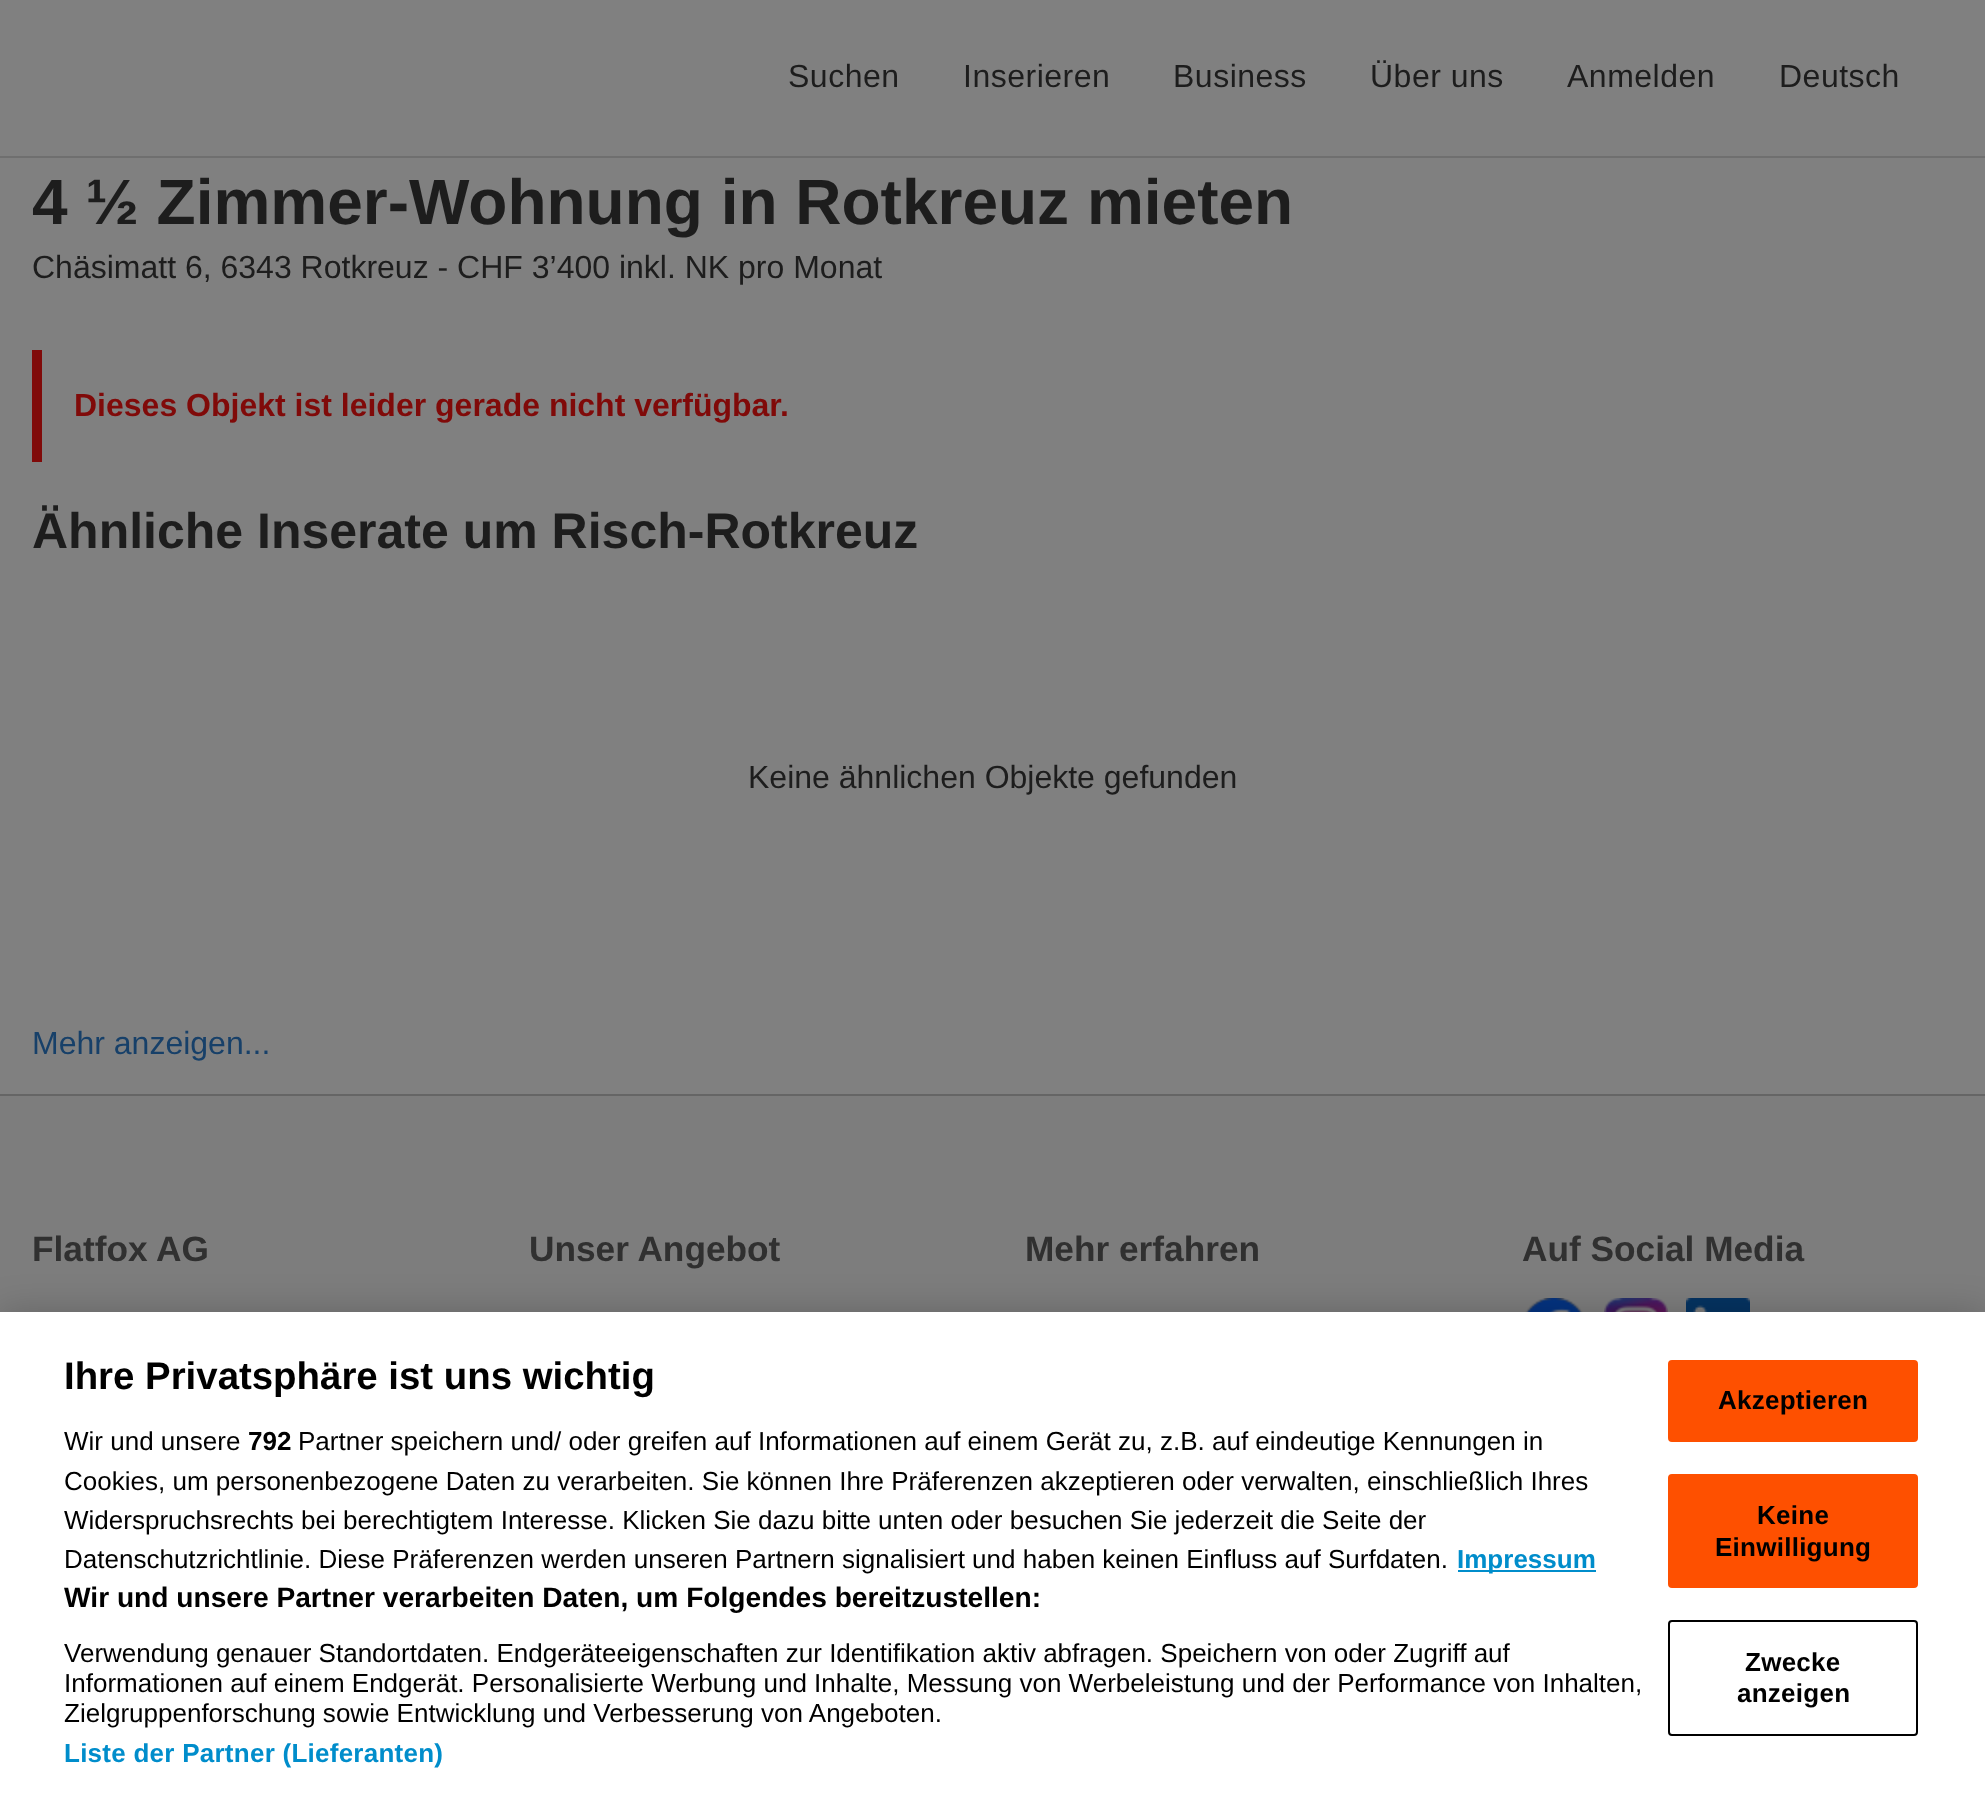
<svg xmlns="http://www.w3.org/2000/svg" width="1985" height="1814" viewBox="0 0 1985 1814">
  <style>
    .t1 { font: 32px Liberation Sans; letter-spacing: 0.5px; fill: #1d1d1d; }
    .t2 { font: bold 64px Liberation Sans; fill: #1d1d1d; }
    .t3 { font: 32px Liberation Sans; fill: #1d1d1d; }
    .t4 { font: bold 32px Liberation Sans; fill: #800a09; }
    .t5 { font: bold 50px Liberation Sans; fill: #1d1d1d; }
    .t6 { font: 32px Liberation Sans; fill: #174069; }
    .t7 { font: bold 35.25px Liberation Sans; fill: #303030; }
    .t8 { font: bold 38.4px Liberation Sans; fill: #000; }
    .t9 { font: 26.02px Liberation Sans; fill: #000; }
    .t10 { font: bold 26.02px Liberation Sans; fill: #000; }
    .t11 { font: bold 26.02px Liberation Sans; fill: #008dcb; }
    .t12 { font: bold 28.15px Liberation Sans; fill: #000; }
    .t13 { font: bold 26.02px Liberation Sans; letter-spacing: 0.25px; fill: #008dcb; }
    .t14 { font: bold 26.02px Liberation Sans; letter-spacing: 0.25px; fill: #000; }
  </style>
  <rect width="100%" height="100%" fill="#808080"/>
  <rect x="0" y="156" width="1985" height="2" fill="#6f6f6f"/>
  <text x="788" y="87" class="t1">Suchen</text>
  <text x="963" y="87" class="t1">Inserieren</text>
  <text x="1173" y="87" class="t1">Business</text>
  <text x="1370" y="87" class="t1">Über uns</text>
  <text x="1567" y="87" class="t1">Anmelden</text>
  <text x="1779" y="87" class="t1">Deutsch</text>
  <text x="32" y="224" class="t2">4 ½ Zimmer-Wohnung in Rotkreuz mieten</text>
  <text x="32" y="278" class="t3">Chäsimatt 6, 6343 Rotkreuz - CHF 3’400 inkl. NK pro Monat</text>
  <rect x="32" y="350" width="10" height="112" fill="#800a09"/>
  <text x="74" y="416" class="t4">Dieses Objekt ist leider gerade nicht verfügbar.</text>
  <text x="32" y="548" class="t5">Ähnliche Inserate um Risch-Rotkreuz</text>
  <text x="748" y="788" class="t3">Keine ähnlichen Objekte gefunden</text>
  <text x="32" y="1054" class="t6">Mehr anzeigen...</text>
  <rect x="0" y="1096" width="1985" height="216" fill="#7d7d7d"/>
  <rect x="0" y="1094" width="1985" height="2" fill="#656565"/>
  <text x="32" y="1261" class="t7">Flatfox AG</text>
  <text x="529" y="1261" class="t7">Unser Angebot</text>
  <text x="1025" y="1261" class="t7">Mehr erfahren</text>
  <text x="1522" y="1261" class="t7">Auf Social Media</text>
  <image x="1525" y="1298" width="58" height="14" href="images/1.png"/>
  <image x="1604" y="1298" width="64" height="14" href="images/2.png"/>
  <image x="1686" y="1298" width="64" height="14" href="images/3.png"/>
  <rect x="0" y="1312" width="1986" height="502" fill="#00000033" filter="blur(18px)"/>
  <rect x="0" y="1312" width="1985" height="502" fill="#fff"/>
  <text x="64" y="1389" class="t8">Ihre Privatsphäre ist uns wichtig</text>
  <text x="64" y="1450" class="t9">Wir und unsere</text>
  <text x="248" y="1450" class="t10">792</text>
  <text x="298" y="1450" class="t9">Partner speichern und/ oder greifen auf Informationen auf einem Gerät zu, z.B. auf eindeutige Kennungen in</text>
  <text x="64" y="1490" class="t9">Cookies, um personenbezogene Daten zu verarbeiten. Sie können Ihre Präferenzen akzeptieren oder verwalten, einschließlich Ihres</text>
  <text x="64" y="1529" class="t9">Widerspruchsrechts bei berechtigtem Interesse. Klicken Sie dazu bitte unten oder besuchen Sie jederzeit die Seite der</text>
  <text x="64" y="1568" class="t9">Datenschutzrichtlinie. Diese Präferenzen werden unseren Partnern signalisiert und haben keinen Einfluss auf Surfdaten.</text>
  <rect x="1458" y="1570" width="138" height="2" fill="#008dcb"/>
  <text x="1457" y="1568" class="t11">Impressum</text>
  <text x="64" y="1607" class="t12">Wir und unsere Partner verarbeiten Daten, um Folgendes bereitzustellen:</text>
  <text x="64" y="1662" class="t9">Verwendung genauer Standortdaten. Endgeräteeigenschaften zur Identifikation aktiv abfragen. Speichern von oder Zugriff auf</text>
  <text x="64" y="1692" class="t9">Informationen auf einem Endgerät. Personalisierte Werbung und Inhalte, Messung von Werbeleistung und der Performance von Inhalten,</text>
  <text x="64" y="1722" class="t9">Zielgruppenforschung sowie Entwicklung und Verbesserung von Angeboten.</text>
  <text x="64" y="1762" class="t13">Liste der Partner (Lieferanten)</text>
  <rect x="1669" y="1361" width="248" height="80" rx="3" fill="#fe5000" stroke="#fe5000" stroke-width="2"/>
  <text x="1718" y="1409" class="t14">Akzeptieren</text>
  <rect x="1669" y="1475" width="248" height="112" rx="3" fill="#fe5000" stroke="#fe5000" stroke-width="2"/>
  <text x="1757" y="1524" class="t14">Keine</text>
  <text x="1715" y="1556" class="t14">Einwilligung</text>
  <rect x="1669" y="1621" width="248" height="114" rx="3" fill="none" stroke="#000" stroke-width="2"/>
  <text x="1745" y="1671" class="t14">Zwecke</text>
  <text x="1737" y="1702" class="t14">anzeigen</text>
</svg>
